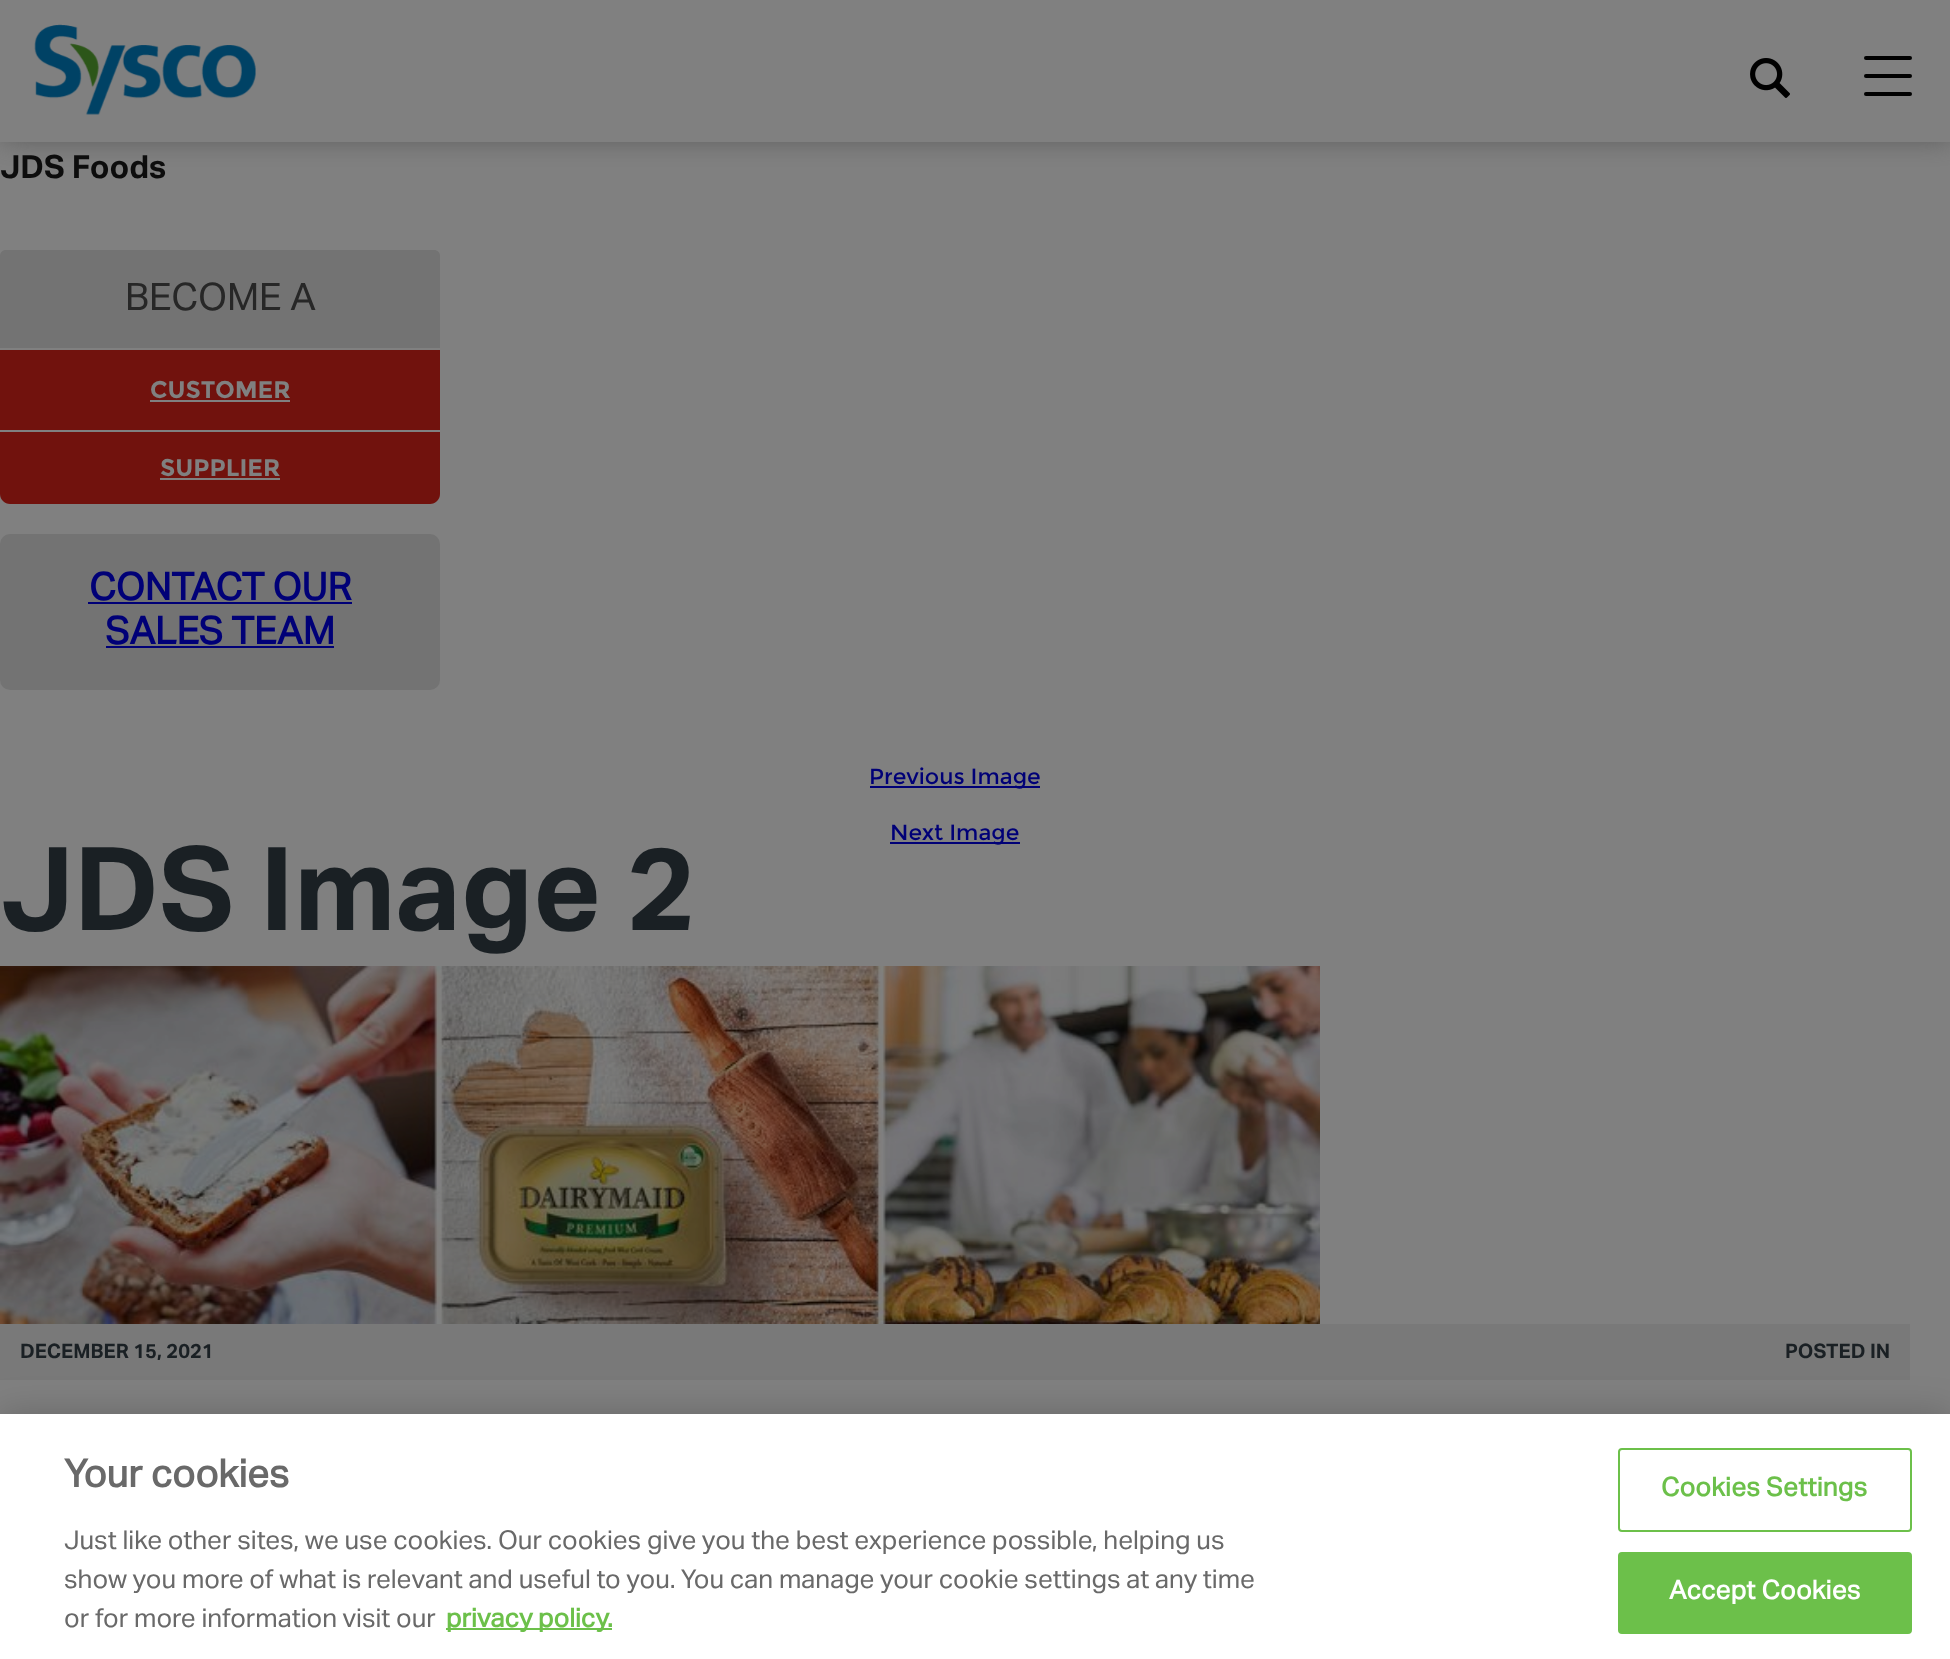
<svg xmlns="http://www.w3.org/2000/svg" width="1950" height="1659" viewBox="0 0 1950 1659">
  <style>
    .t1 { font: bold 32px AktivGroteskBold; fill: #0d0d0d; }
    .t2 { font: 38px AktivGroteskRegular; fill: #272727; }
    .t3 { font: bold 24px Montserrat; fill: #808080; }
    .t4 { font: bold 38px AktivGroteskRegular; fill: #007; }
    .t5 { font: 22px Montserrat; fill: #007; }
    .t6 { font: bold 116px AktivGroteskBold; fill: #1a2024; }
    .t7 { font: bold 20px AktivGroteskBold; fill: #1a2024; }
    .t8 { font: bold 38.5px AktivGroteskRegular; fill: #696969; }
    .t9 { font: 26px AktivGroteskRegular; fill: #696969; }
    .t10 { font: bold 26px AktivGroteskRegular; fill: #6cc04a; }
    .t11 { font: bold 26px AktivGroteskRegular; letter-spacing: 0.25px; fill: #6cc04a; }
    .t12 { font: bold 26px AktivGroteskRegular; letter-spacing: 0.25px; fill: #fff; }
  </style>
  <defs>
    <clipPath id="clip1"><rect x="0" y="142" width="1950" height="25"/></clipPath>
  </defs>
  <rect width="100%" height="100%" fill="#808080"/>
  <g clip-path="url(#clip1)">
    <rect x="2" y="-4" width="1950" height="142" fill="#555" filter="blur(14px)"/>
  </g>
  <image x="34" y="24" width="222" height="91" href="images/1.png"/>
  <image x="1750" y="58" width="40" height="40" href="images/2.png"/>
  <rect x="1864" y="56" width="48" height="4" rx="2" fill="#000"/>
  <rect x="1864" y="74" width="48" height="4" rx="2" fill="#000"/>
  <rect x="1864" y="92" width="48" height="4" rx="2" fill="#000"/>
  <text x="0" y="178" class="t1">JDS Foods</text>
  <path d="M6 250H434C437.5 250 440 252.5 440 256V348H0V256C0 252.5 2.5 250 6 250Z" fill="#737373"/>
  <text x="125" y="310" class="t2">BECOME A</text>
  <rect x="0" y="350" width="440" height="80" fill="#71120d"/>
  <text x="150" y="398" class="t3">CUSTOMER</text>
  <rect x="150" y="400" width="140" height="2" fill="#808080"/>
  <path d="M0 432H440V494C440 499.5 435.5 504 430 504H10C4.5 504 0 499.5 0 494Z" fill="#71120d"/>
  <text x="160" y="476" class="t3">SUPPLIER</text>
  <rect x="160" y="478" width="120" height="2" fill="#808080"/>
  <rect x="0" y="534" width="440" height="156" rx="10" fill="#737373"/>
  <text x="89" y="600" class="t4">CONTACT OUR</text>
  <rect x="88" y="602" width="264" height="2" fill="#007"/>
  <text x="105" y="644" class="t4">SALES TEAM</text>
  <rect x="106" y="646" width="228" height="2" fill="#007"/>
  <rect x="870" y="786" width="170" height="2" fill="#007"/>
  <text x="869" y="784" class="t5">Previous Image</text>
  <rect x="890" y="842" width="130" height="2" fill="#007"/>
  <text x="890" y="840" class="t5">Next Image</text>
  <text x="0" y="930" class="t6">JDS Image 2</text>
  <image x="0" y="966" width="1320" height="358" href="images/3.png"/>
  <rect x="0" y="1324" width="1910" height="56" fill="#797979"/>
  <text x="20" y="1358" class="t7">DECEMBER 15, 2021</text>
  <text x="1785" y="1358" class="t7">POSTED IN</text>
  <rect x="0" y="1414" width="1950" height="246" fill="#00000033" filter="blur(18px)"/>
  <rect x="0" y="1414" width="1950" height="245" fill="#fff"/>
  <text x="64" y="1487" class="t8">Your cookies</text>
  <text x="64" y="1549" class="t9">Just like other sites, we use cookies. Our cookies give you the best experience possible, helping us</text>
  <text x="64" y="1588" class="t9">show you more of what is relevant and useful to you. You can manage your cookie settings at any time</text>
  <text x="64" y="1627" class="t9">or for more information visit our</text>
  <rect x="446" y="1628" width="166" height="2" fill="#6cc04a"/>
  <text x="446" y="1627" class="t10">privacy policy.</text>
  <rect x="1619" y="1449" width="292" height="82" rx="3" fill="none" stroke="#6cc04a" stroke-width="2"/>
  <text x="1661" y="1496" class="t11">Cookies Settings</text>
  <rect x="1619" y="1553" width="292" height="80" rx="3" fill="#6cc04a" stroke="#6cc04a" stroke-width="2"/>
  <text x="1669" y="1599" class="t12">Accept Cookies</text>
</svg>
